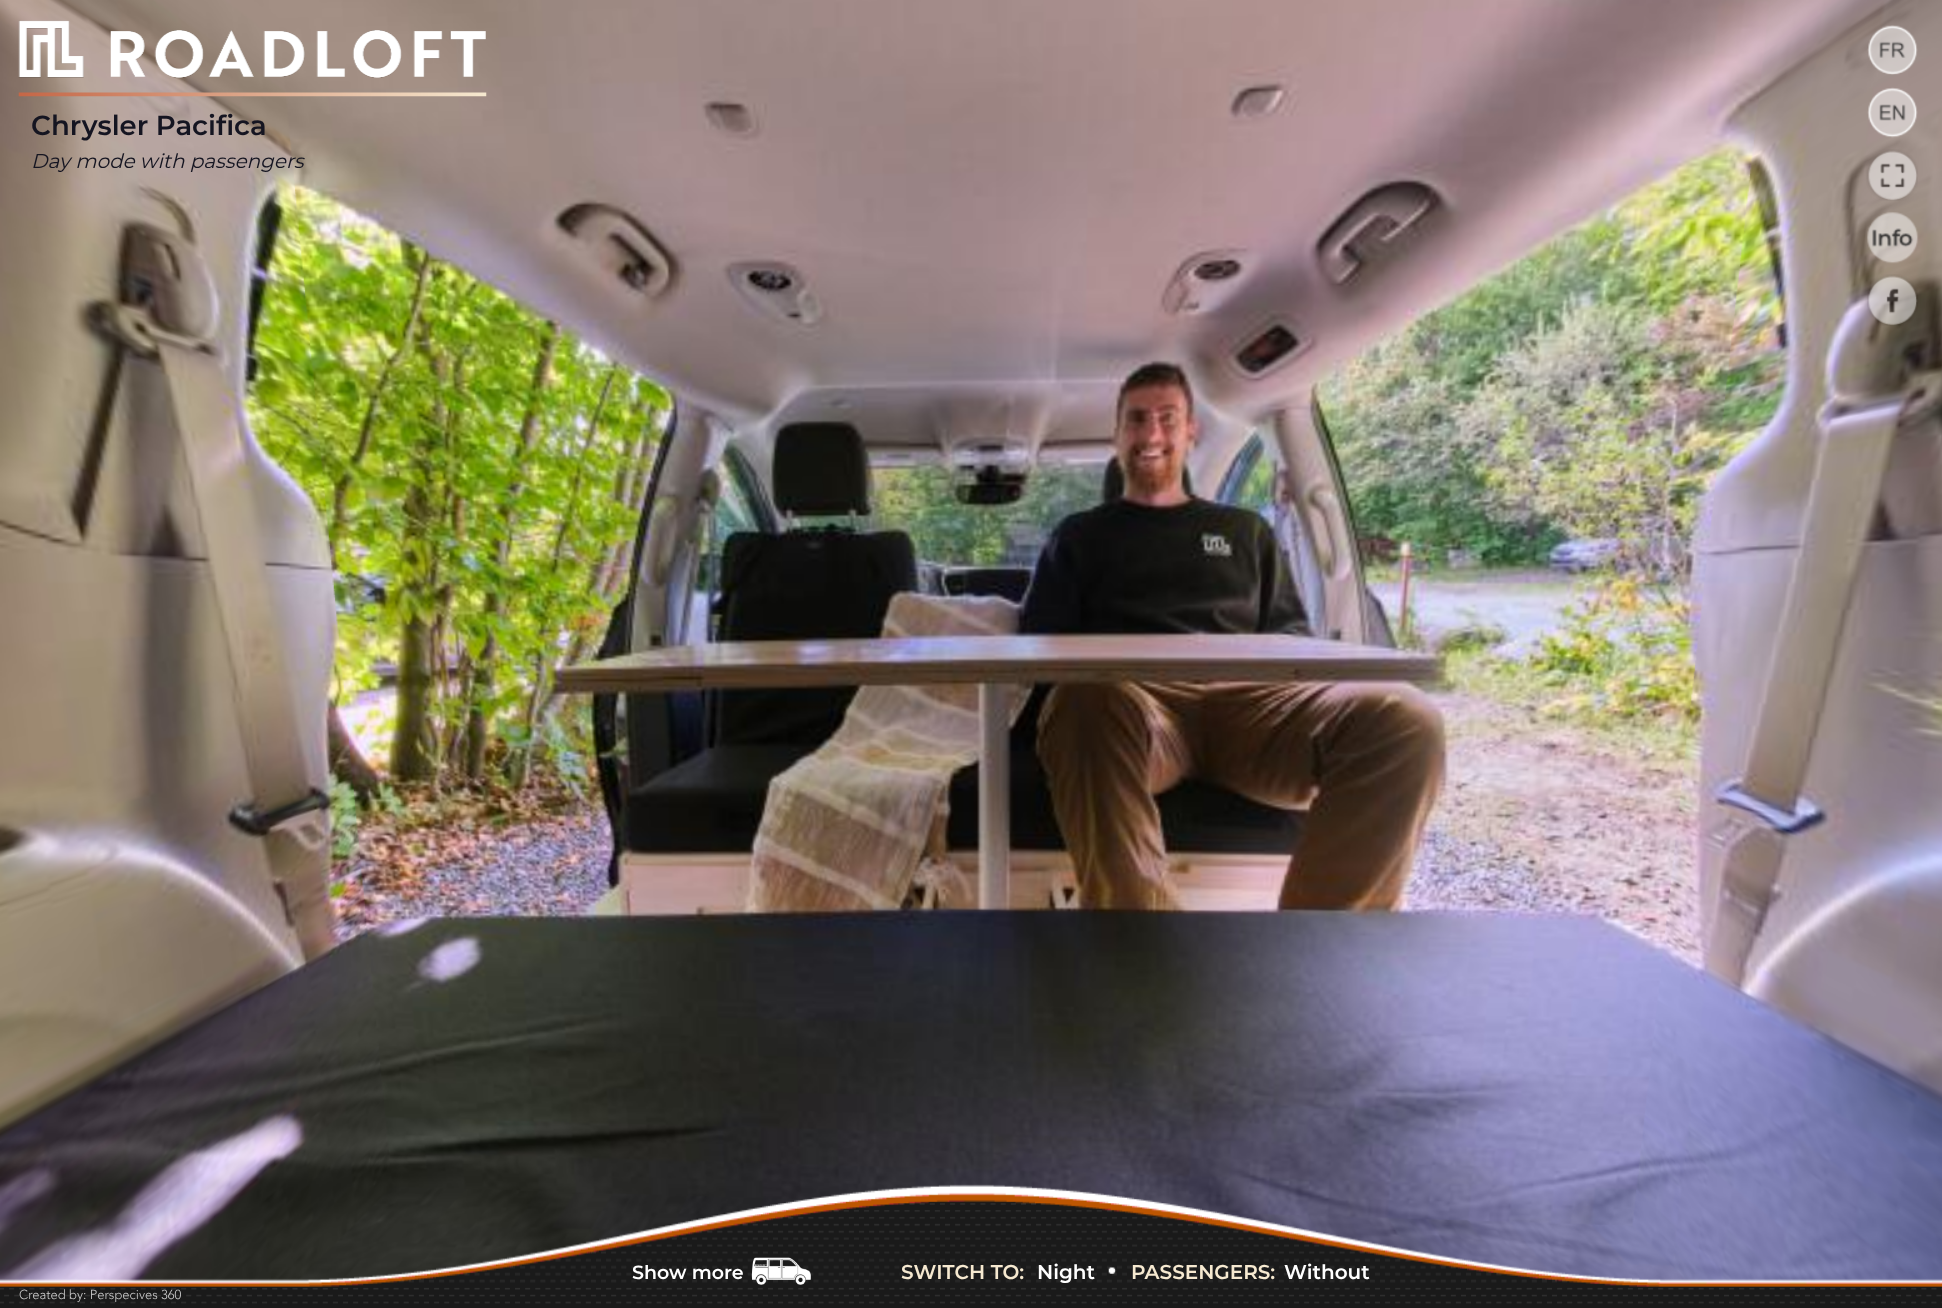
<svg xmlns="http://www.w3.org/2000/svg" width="1942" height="1308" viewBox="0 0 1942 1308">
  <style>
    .t1 { font: 600 27.5px Montserrat; fill: #151521; }
    .t2 { font: italic 20px Montserrat; fill: #151521; }
    .t3 { font: 600 19px Montserrat; fill: #fff; }
    .t4 { font: 600 20px Montserrat; fill: #f6e9d0; }
    .t5 { font: 600 20px Montserrat; fill: #fff; }
    .t6 { font: 300 13px Avenir; fill: #ccc; }
  </style>
  <rect width="100%" height="100%" fill="#fff"/>
  <image x="0" y="0" width="1942" height="1282" href="images/1.png"/>
  <image x="18" y="20" width="468" height="58" href="images/2.png"/>
  <image x="18" y="92" width="469" height="5" href="images/3.png"/>
  <text x="31" y="135" class="t1">Chrysler Pacifica</text>
  <text x="31" y="168" class="t2">Day mode with passengers</text>
  <image x="1867" y="25" width="51" height="50" href="images/4.png"/>
  <image x="1867" y="87" width="51" height="51" href="images/5.png"/>
  <image x="1866" y="149" width="52" height="52" href="images/6.png"/>
  <image x="1867" y="212" width="52" height="52" href="images/7.png"/>
  <image x="1867" y="274" width="51" height="52" href="images/8.png"/>
  <image x="0" y="1184" width="1942" height="124" href="images/9.png"/>
  <text x="632" y="1279" class="t3">Show more</text>
  <image x="751" y="1257" width="60" height="28" href="images/10.png"/>
  <text x="901" y="1279" class="t4">SWITCH TO:</text>
  <text x="1037" y="1279" class="t5">Night</text>
  <image x="1108" y="1267" width="9" height="7" href="images/11.png"/>
  <text x="1131" y="1279" class="t4">PASSENGERS:</text>
  <text x="1284" y="1279" class="t5">Without</text>
  <text x="19" y="1299" class="t6">Created by: Perspecives 360</text>
</svg>
